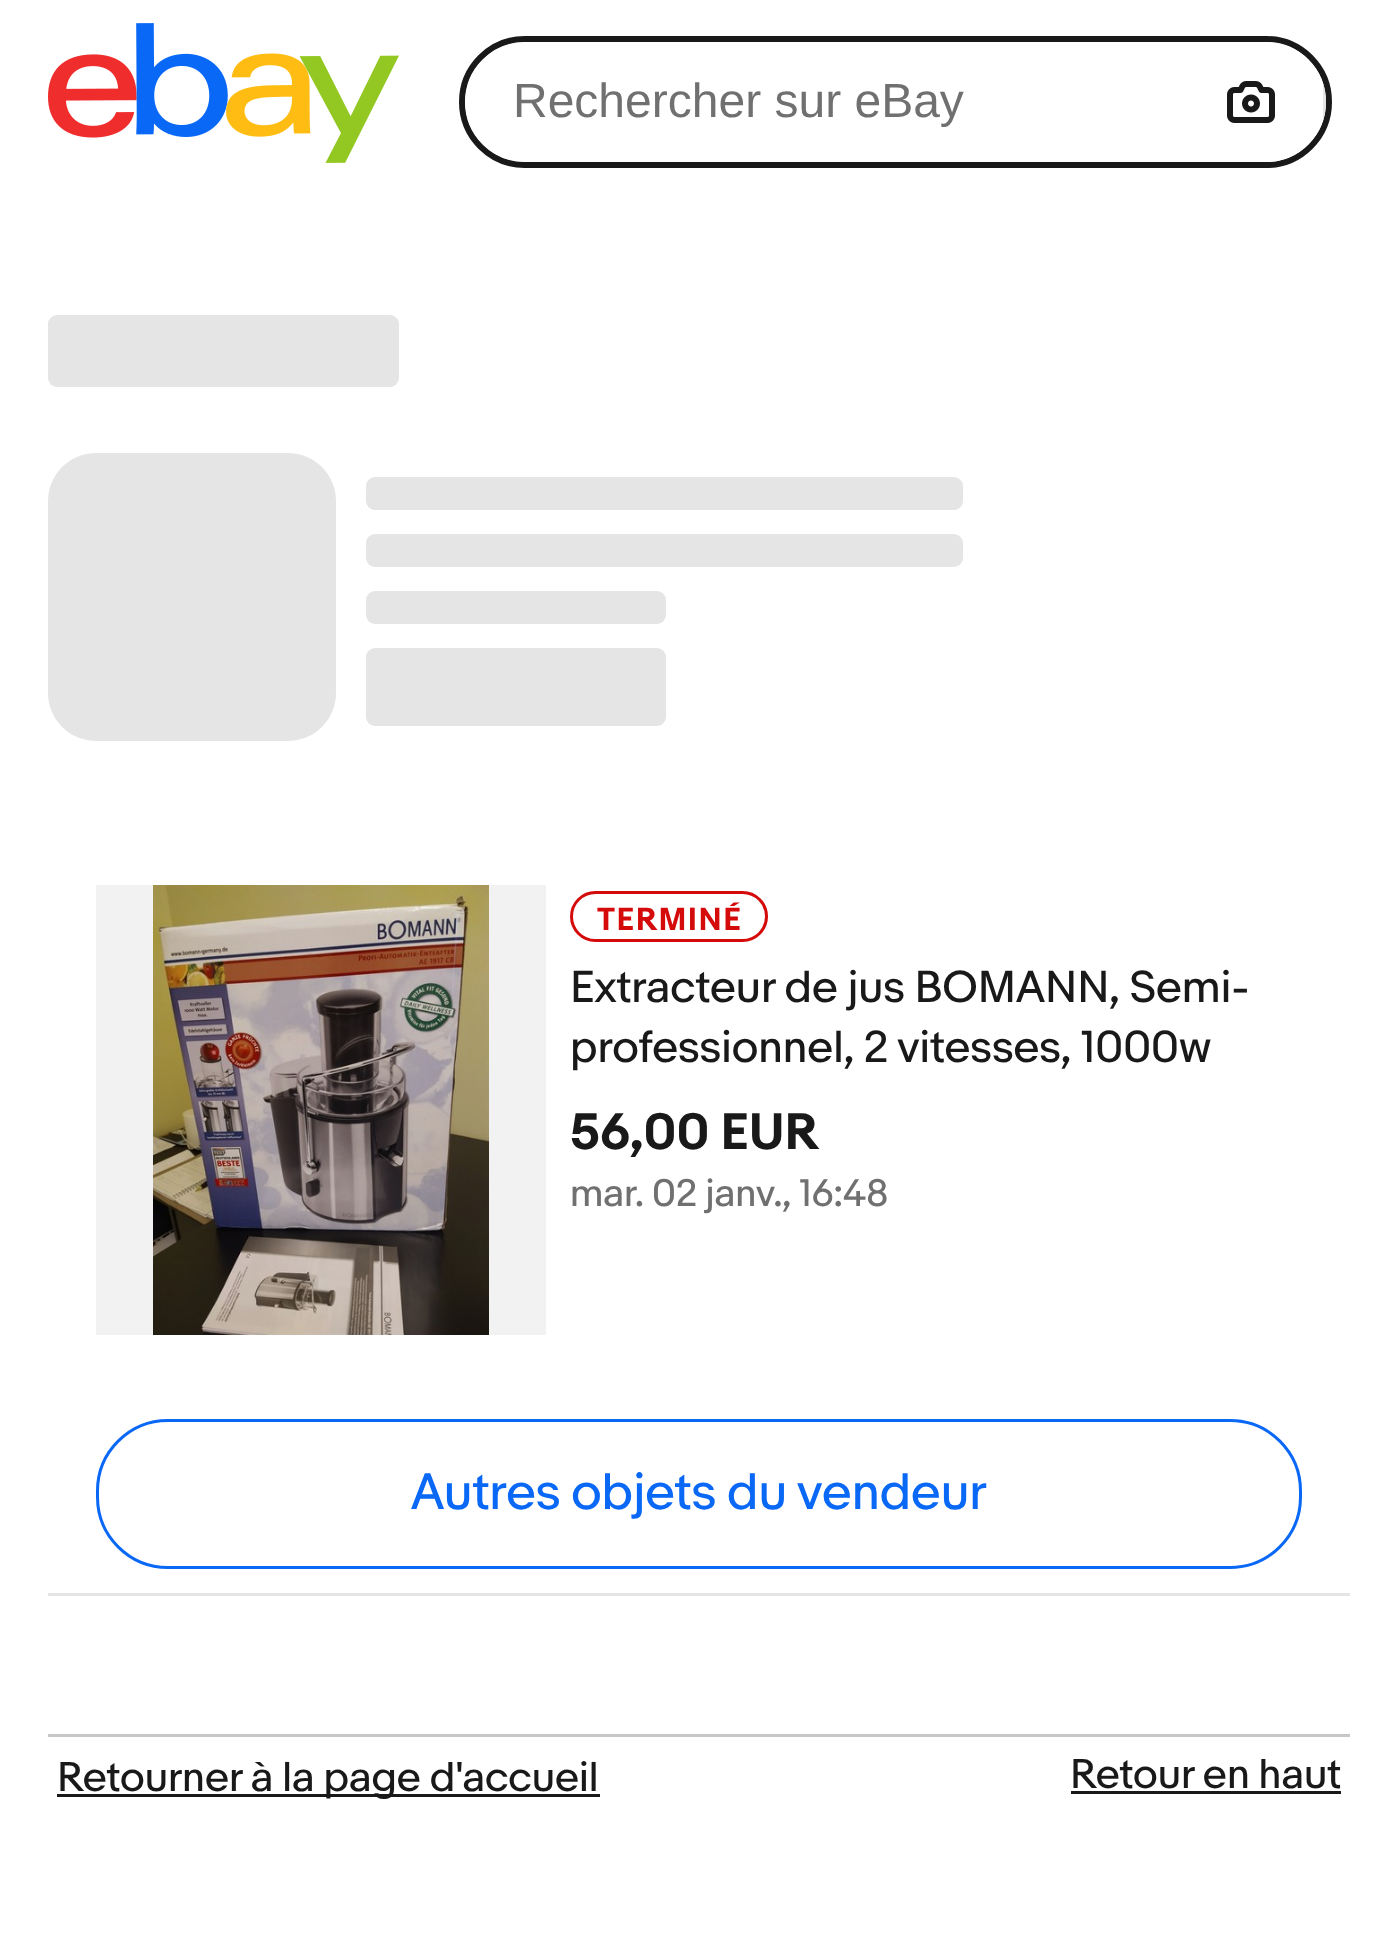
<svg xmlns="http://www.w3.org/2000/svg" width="1397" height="1941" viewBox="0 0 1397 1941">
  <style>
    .t1 { font: 48px Liberation Sans; fill: #707070; }
    .t2 { font: bold 30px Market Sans; letter-spacing: 1.5px; fill: #d50b0b; }
    .t3 { font: 42px Market Sans; fill: #191919; }
    .t4 { font: bold 48px Market Sans; fill: #191919; }
    .t5 { font: 36px Market Sans; fill: #707070; }
    .t6 { font: 48px Market Sans; fill: #0968f6; }
    .t7 { font: 39px Market Sans; fill: #191919; }
  </style>
  <defs>
    <clipPath id="clip1"><rect x="465" y="42" width="861" height="120" rx="60"/></clipPath>
  </defs>
  <rect width="100%" height="100%" fill="#fff"/>
  <image x="48" y="23" width="351" height="140" href="images/1.png"/>
  <rect x="462" y="39" width="867" height="126" rx="63" fill="none" stroke="#191919" stroke-width="6"/>
  <g clip-path="url(#clip1)">
    <rect x="1323" y="83" width="3" height="38" fill="#e5e5e5"/>
    <path d="M525 42H1323V162H525C492 162 465 135 465 102C465 69 492 42 525 42Z" fill="#fff"/>
  </g>
  <text x="513" y="117" class="t1">Rechercher sur eBay</text>
  <image x="1227" y="81" width="48" height="42" href="images/2.png"/>
  <rect x="48" y="315" width="351" height="72" rx="9" fill="#e5e5e5"/>
  <rect x="48" y="453" width="288" height="288" rx="48" fill="#e5e5e5"/>
  <rect x="366" y="477" width="597" height="33" rx="9" fill="#e5e5e5"/>
  <rect x="366" y="534" width="597" height="33" rx="9" fill="#e5e5e5"/>
  <rect x="366" y="591" width="300" height="33" rx="9" fill="#e5e5e5"/>
  <rect x="366" y="648" width="300" height="78" rx="9" fill="#e5e5e5"/>
  <rect x="48" y="1593" width="1302" height="3" fill="#e5e5e5"/>
  <image x="153" y="885" width="336" height="450" href="images/3.png"/>
  <rect x="96" y="885" width="450" height="450" fill="#0000000d"/>
  <rect x="571.5" y="892.5" width="195" height="48" rx="24" fill="none" stroke="#d50b0b" stroke-width="3"/>
  <text x="597" y="930" class="t2">TERMINÉ</text>
  <text x="570" y="1002" class="t3">Extracteur de jus BOMANN, Semi-</text>
  <text x="570" y="1062" class="t3">professionnel, 2 vitesses, 1000w</text>
  <text x="570" y="1149" class="t4">56,00 EUR</text>
  <text x="570" y="1206" class="t5">mar. 02 janv., 16:48</text>
  <rect x="97.5" y="1420.5" width="1203" height="147" rx="70.5" fill="none" stroke="#0968f6" stroke-width="3"/>
  <text x="411" y="1509" class="t6">Autres objets du vendeur</text>
  <rect x="48" y="1734" width="1302" height="3" fill="#c7c7c7"/>
  <rect x="57" y="1794" width="543" height="3" fill="#191919"/>
  <text x="57" y="1791" class="t7">Retourner à la page d'accueil</text>
  <text x="1070" y="1788" class="t7">Retour en haut</text>
  <rect x="1071" y="1791" width="270" height="3" fill="#191919"/>
</svg>
